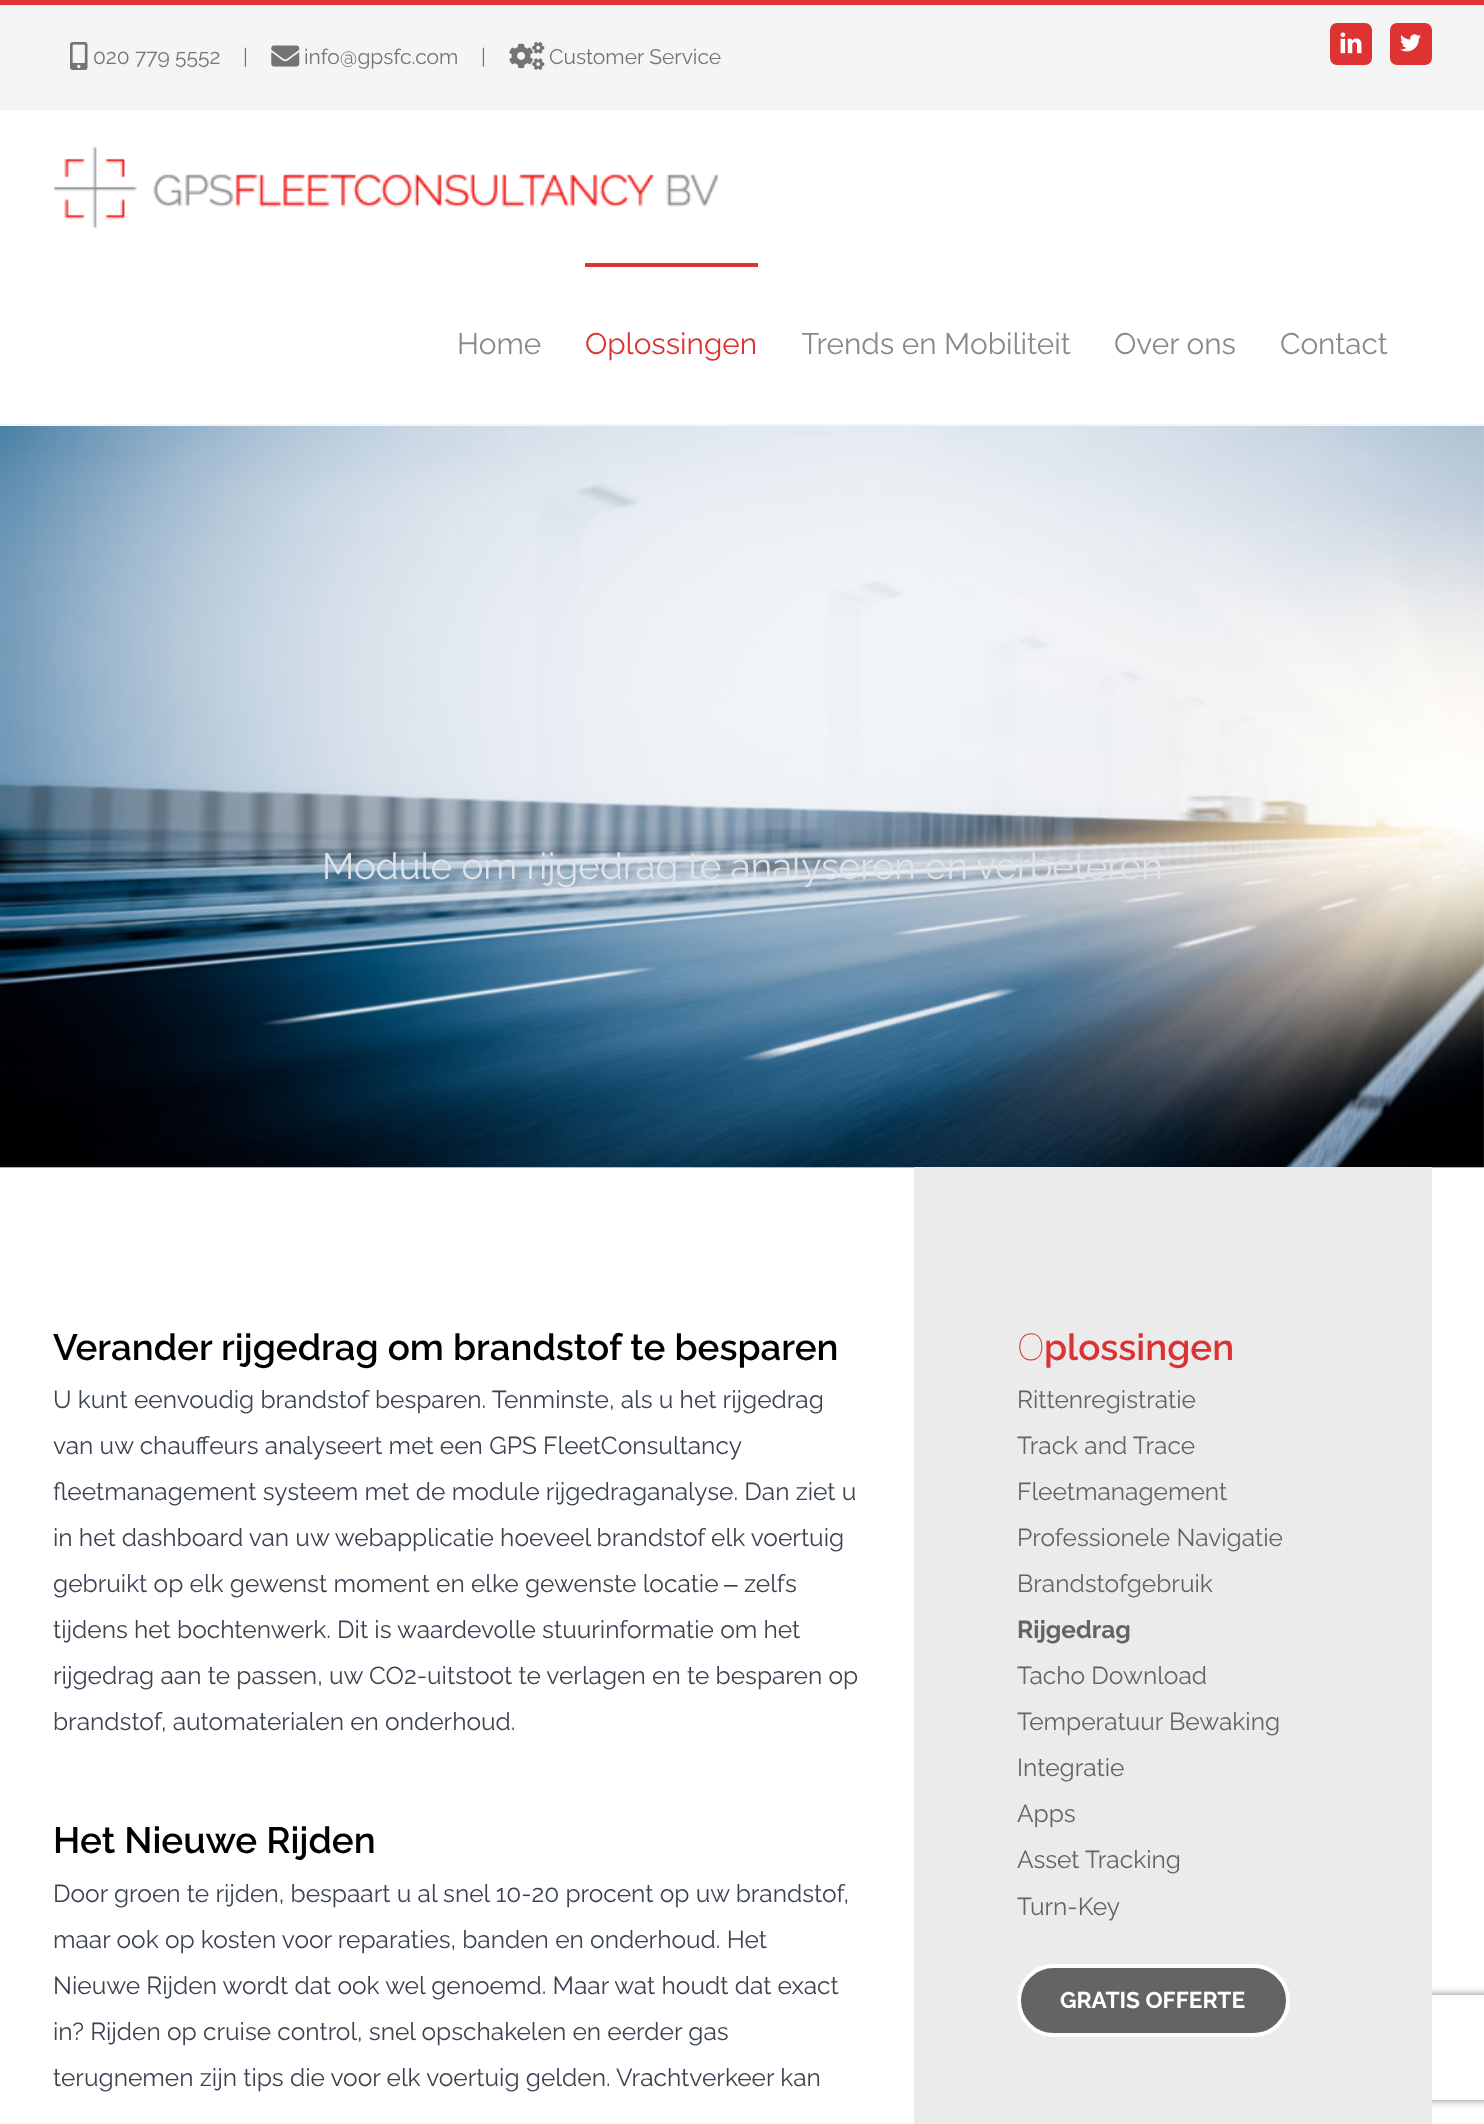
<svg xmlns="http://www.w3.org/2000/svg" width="1484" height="2124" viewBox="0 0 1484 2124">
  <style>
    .t1 { font: 100 21px Raleway; fill: #747474; }
    .t2 { font: 100 29.75px Raleway; fill: #848b8e; }
    .t3 { font: 100 29.75px Raleway; fill: #dc3234; }
    .t4 { font: 100 36.75px Raleway; fill: #dde3e9; }
    .t5 { font: 100 36.75px 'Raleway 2'; fill: #000; }
    .t6 { font: 100 24.5px Raleway; fill: #3b4251; }
    .t7 { font: 24.5px Liberation Sans; fill: #3b4251; }
    .t8 { font: 100 36.75px Noto Sans; fill: #dc3234; }
    .t9 { font: 100 36.75px 'Raleway 2'; fill: #dc3234; }
    .t10 { font: 100 24.5px Raleway; fill: #646464; }
    .t11 { font: 100 24.5px 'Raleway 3'; fill: #646464; }
    .t12 { font: 100 22.75px 'Raleway 3'; fill: #fff; }
  </style>
  <defs>
    <clipPath id="clip1"><rect x="802" y="263" width="313" height="161"/></clipPath>
    <clipPath id="clip2"><path d="M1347 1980H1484V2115H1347ZM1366 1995H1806C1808 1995 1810 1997 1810 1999V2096C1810 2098 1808 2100 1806 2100H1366C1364 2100 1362 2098 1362 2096V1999C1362 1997 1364 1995 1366 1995Z" clip-rule="evenodd"/></clipPath>
  </defs>
  <rect width="100%" height="100%" fill="#fff"/>
  <rect x="0" y="5" width="1484" height="105" fill="#f5f5f5"/>
  <rect x="0" y="0" width="1484" height="5" fill="#d33"/>
  <image x="70" y="42" width="18" height="28" href="images/1.png"/>
  <text x="93" y="64" class="t1">020 779 5552</text>
  <text x="243" y="64" class="t1">|</text>
  <image x="271" y="45" width="29" height="22" href="images/2.png"/>
  <text x="304" y="64" class="t1">info@gpsfc.com</text>
  <text x="481" y="64" class="t1">|</text>
  <image x="509" y="42" width="36" height="28" href="images/3.png"/>
  <text x="549" y="64" class="t1">Customer Service</text>
  <rect x="1331" y="24" width="40" height="40" rx="6" fill="#d33" stroke="#d33" stroke-width="2"/>
  <image x="1340" y="32" width="22" height="22" href="images/4.png"/>
  <rect x="1391" y="24" width="40" height="40" rx="6" fill="#d33" stroke="#d33" stroke-width="2"/>
  <image x="1400" y="34" width="21" height="18" href="images/5.png"/>
  <rect x="0" y="424" width="1484" height="2" fill="#f5f5f5"/>
  <image x="53" y="146" width="665" height="82" href="images/6.png"/>
  <text x="457" y="354" class="t2">Home</text>
  <rect x="585" y="263" width="173" height="4" fill="#d33"/>
  <text x="585" y="354" class="t3">Oplossingen</text>
  <g clip-path="url(#clip1)">
    <text x="801" y="354" class="t2">Trends en Mobiliteit</text>
  </g>
  <text x="1114" y="354" class="t2">Over ons</text>
  <text x="1280" y="354" class="t2">Contact</text>
  <image x="0" y="426" width="1484" height="742" href="images/7.png"/>
  <text x="322" y="879" class="t4">Module om rijgedrag te analyseren en verbeteren</text>
  <text x="53" y="1360" class="t5">Verander rijgedrag om brandstof te besparen</text>
  <text x="53" y="1408" class="t6">U kunt eenvoudig brandstof besparen. Tenminste, als u het rijgedrag</text>
  <text x="53" y="1454" class="t6">van uw chauffeurs analyseert met een GPS FleetConsultancy</text>
  <text x="53" y="1500" class="t6">fleetmanagement systeem met de module rijgedraganalyse. Dan ziet u</text>
  <text x="53" y="1546" class="t6">in het dashboard van uw webapplicatie hoeveel brandstof elk voertuig</text>
  <text x="53" y="1592" class="t6">gebruikt op elk gewenst moment en elke gewenste locatie</text>
  <text x="724" y="1592" class="t7">‒</text>
  <text x="744" y="1592" class="t6">zelfs</text>
  <text x="53" y="1638" class="t6">tijdens het bochtenwerk. Dit is waardevolle stuurinformatie om het</text>
  <text x="53" y="1684" class="t6">rijgedrag aan te passen, uw CO2-uitstoot te verlagen en te besparen op</text>
  <text x="53" y="1730" class="t6">brandstof, automaterialen en onderhoud.</text>
  <text x="53" y="1853" class="t5">Het Nieuwe Rijden</text>
  <text x="53" y="1902" class="t6">Door groen te rijden, bespaart u al snel 10-20 procent op uw brandstof,</text>
  <text x="53" y="1948" class="t6">maar ook op kosten voor reparaties, banden en onderhoud. Het</text>
  <text x="53" y="1994" class="t6">Nieuwe Rijden wordt dat ook wel genoemd. Maar wat houdt dat exact</text>
  <text x="53" y="2040" class="t6">in? Rijden op cruise control, snel opschakelen en eerder gas</text>
  <text x="53" y="2086" class="t6">terugnemen zijn tips die voor elk voertuig gelden. Vrachtverkeer kan</text>
  <g clip-path="url(#clip2)">
    <rect x="1362" y="1995" width="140" height="105" rx="4" fill="#808080" filter="blur(4.5px)"/>
  </g>
  <rect x="914" y="1167" width="518" height="957" fill="#ebebeb"/>
  <text x="1017" y="1360" class="t8">O</text>
  <text x="1044" y="1360" class="t9">plossingen</text>
  <text x="1017" y="1408" class="t10">Rittenregistratie</text>
  <text x="1017" y="1454" class="t10">Track and Trace</text>
  <text x="1017" y="1500" class="t10">Fleetmanagement</text>
  <text x="1017" y="1546" class="t10">Professionele Navigatie</text>
  <text x="1017" y="1592" class="t10">Brandstofgebruik</text>
  <text x="1017" y="1638" class="t11">Rijgedrag</text>
  <text x="1017" y="1684" class="t10">Tacho Download</text>
  <text x="1017" y="1730" class="t10">Temperatuur Bewaking</text>
  <text x="1017" y="1776" class="t10">Integratie</text>
  <text x="1017" y="1822" class="t10">Apps</text>
  <text x="1017" y="1868" class="t10">Asset Tracking</text>
  <text x="1017" y="1915" class="t10">Turn-Key</text>
  <rect x="1019" y="1966" width="269" height="69" rx="34.5" fill="#646464" stroke="#fff" stroke-width="4"/>
  <text x="1060" y="2008" class="t12">GRATIS OFFERTE</text>
</svg>
